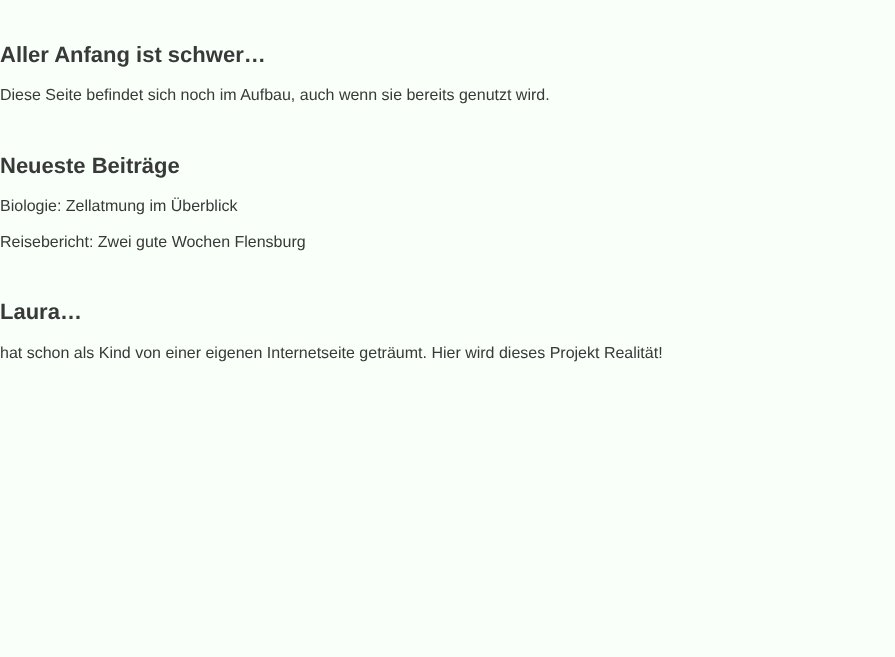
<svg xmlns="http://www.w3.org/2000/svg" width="895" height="657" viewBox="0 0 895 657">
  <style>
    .t1 { font: bold 22px Liberation Sans; fill: #393939; }
    .t2 { font: 16px Liberation Sans; fill: #393939; }
  </style>
  <rect width="100%" height="100%" fill="#f9fff9"/>
  <text x="0" y="62" class="t1">Aller Anfang ist schwer…</text>
  <text x="0" y="100" class="t2">Diese Seite befindet sich noch im Aufbau, auch wenn sie bereits genutzt wird.</text>
  <text x="0" y="173" class="t1">Neueste Beiträge</text>
  <text x="0" y="211" class="t2">Biologie: Zellatmung im Überblick</text>
  <text x="0" y="247" class="t2">Reisebericht: Zwei gute Wochen Flensburg</text>
  <text x="0" y="319" class="t1">Laura…</text>
  <text x="0" y="358" class="t2">hat schon als Kind von einer eigenen Internetseite geträumt. Hier wird dieses Projekt Realität!</text>
</svg>
